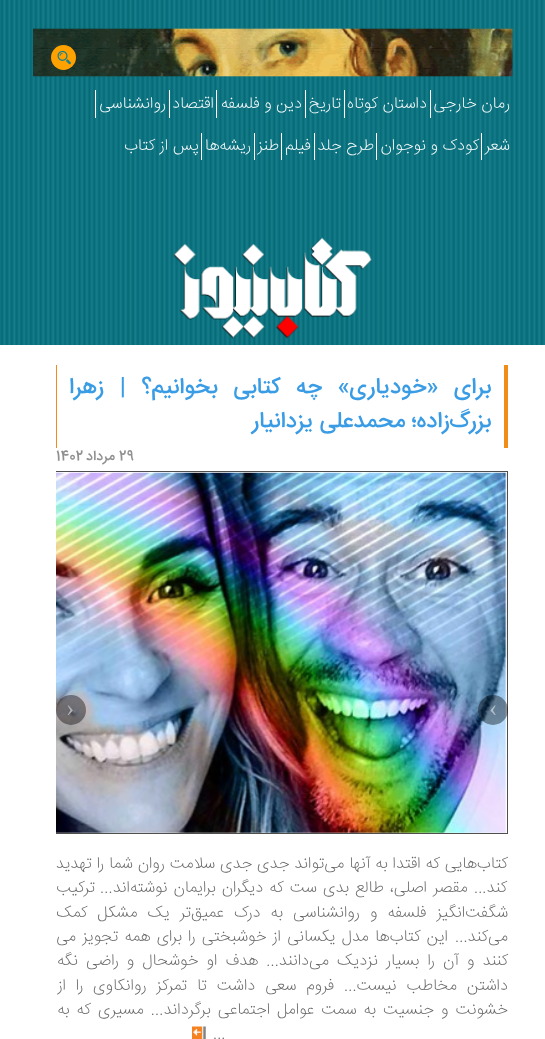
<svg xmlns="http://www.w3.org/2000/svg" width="545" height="1039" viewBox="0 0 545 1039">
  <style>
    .t1 { font: 200 16.25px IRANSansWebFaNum; direction: rtl; fill: #fff; }
    .t2 { font: 500 22.5px IRANSansWebFaNum; direction: rtl; fill: #399ce4; }
    .t3 { font: 500 14px IRANSansWebFaNum; fill: #919090; }
    .t4 { font: 500 14px IRANSansWebFaNum; direction: rtl; fill: #919090; }
    .t5 { font: 200 16.25px IRANSansWebFaNum; direction: rtl; fill: #666; }
    .t6 { font: 200 16.25px IRANSansWebFaNum; fill: #666; }
    .t7 { font: 25px Liberation Serif; fill: #b1bec9; }
    .t8 { font: 25px Liberation Serif; fill: #b1b1b3; }
  </style>
  <defs>
    <clipPath id="clip1"><rect x="56" y="359" width="452" height="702"/></clipPath>
  </defs>
  <rect width="100%" height="100%" fill="#fff"/>
  <image x="0" y="0" width="545" height="345" href="images/1.png"/>
  <image x="33" y="28" width="480" height="49" href="images/2.png"/>
  <circle cx="63.5" cy="57.5" r="12.5" fill="#ffa200"/>
  <image x="57" y="50" width="14" height="15" href="images/3.png"/>
  <text x="510" y="108" class="t1">رمان خارجی</text>
  <rect x="430" y="90" width="1" height="28" fill="#fff"/>
  <text x="427" y="108" class="t1">داستان کوتاه</text>
  <rect x="344" y="90" width="1" height="28" fill="#fff"/>
  <text x="341" y="108" class="t1">تاریخ</text>
  <rect x="305" y="90" width="1" height="28" fill="#fff"/>
  <text x="302" y="108" class="t1">دین و فلسفه</text>
  <rect x="216" y="90" width="1" height="28" fill="#fff"/>
  <text x="214" y="108" class="t1">اقتصاد</text>
  <rect x="169" y="90" width="1" height="28" fill="#fff"/>
  <text x="166" y="108" class="t1">روانشناسی</text>
  <rect x="95" y="90" width="1" height="28" fill="#fff"/>
  <text x="510" y="150" class="t1">شعر</text>
  <rect x="481" y="133" width="1" height="27" fill="#fff"/>
  <text x="479" y="150" class="t1">کودک و نوجوان</text>
  <rect x="376" y="133" width="1" height="27" fill="#fff"/>
  <text x="374" y="150" class="t1">طرح جلد</text>
  <rect x="314" y="133" width="1" height="27" fill="#fff"/>
  <text x="311" y="150" class="t1">فیلم</text>
  <rect x="281" y="133" width="1" height="27" fill="#fff"/>
  <text x="279" y="150" class="t1">طنز</text>
  <rect x="254" y="133" width="1" height="27" fill="#fff"/>
  <text x="251" y="150" class="t1">ریشه‌ها</text>
  <rect x="201" y="133" width="1" height="27" fill="#fff"/>
  <text x="199" y="150" class="t1">پس از کتاب</text>
  <image x="173" y="237" width="199" height="102" href="images/4.png"/>
  <rect x="56" y="365" width="1" height="83" fill="#f18c19"/>
  <rect x="504" y="365" width="4" height="83" fill="#f18c19"/>
  <text x="491" y="393" word-spacing="9.5" class="t2">برای «خودیاری» چه کتابی بخوانیم؟ | زهرا</text>
  <text x="491" y="427" class="t2">بزرگ‌زاده؛ محمدعلی یزدانیار</text>
  <text x="119" y="460" class="t3">29</text>
  <text x="115" y="460" class="t4">مرداد</text>
  <text x="56" y="460" class="t3">1402</text>
  <g clip-path="url(#clip1)">
    <rect x="-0.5" y="471.5" width="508" height="362" fill="none" stroke="#4f4f4e"/>
  </g>
  <image x="56" y="472" width="451" height="361" href="images/5.png"/>
  <text x="508" y="868" word-spacing="0.25" class="t5">کتاب‌هایی که اقتدا به آنها می‌تواند جدی جدی سلامت روان شما را تهدید</text>
  <text x="507" y="892" word-spacing="1.5" class="t5">کند... مقصر اصلی، طالع بدی ست که دیگران برایمان نوشته‌اند...</text>
  <text x="95" y="892" class="t5">ترکیب</text>
  <text x="508" y="917" word-spacing="5.5" class="t5">شگفت‌انگیز فلسفه و روانشناسی به درک عمیق‌تر یک مشکل کمک</text>
  <text x="508" y="941" class="t5">می‌کند...</text>
  <text x="448" y="941" word-spacing="1.6" class="t5">این کتاب‌ها مدل یکسانی از خوشبختی را برای همه تجویز می‌</text>
  <text x="508" y="965" word-spacing="3.5" class="t5">کنند و آن را بسیار نزدیک می‌دانند... هدف او خوشحال و راضی نگه</text>
  <text x="508" y="990" word-spacing="5.25" class="t5">داشتن مخاطب نیست... فروم سعی داشت تا تمرکز روانکاوی را از</text>
  <text x="508" y="1014" word-spacing="2.5" class="t5">خشونت و جنسیت به سمت عوامل اجتماعی برگرداند... مسیری که به</text>
  <text x="213" y="1038" class="t6">...</text>
  <image x="192" y="1026" width="14" height="13" href="images/6.png"/>
  <circle cx="493" cy="710" r="15" fill="#00000066"/>
  <text x="489" y="716" class="t7">‹</text>
  <circle cx="71" cy="710" r="15" fill="#00000066"/>
  <text x="66" y="716" class="t8">›</text>
</svg>
